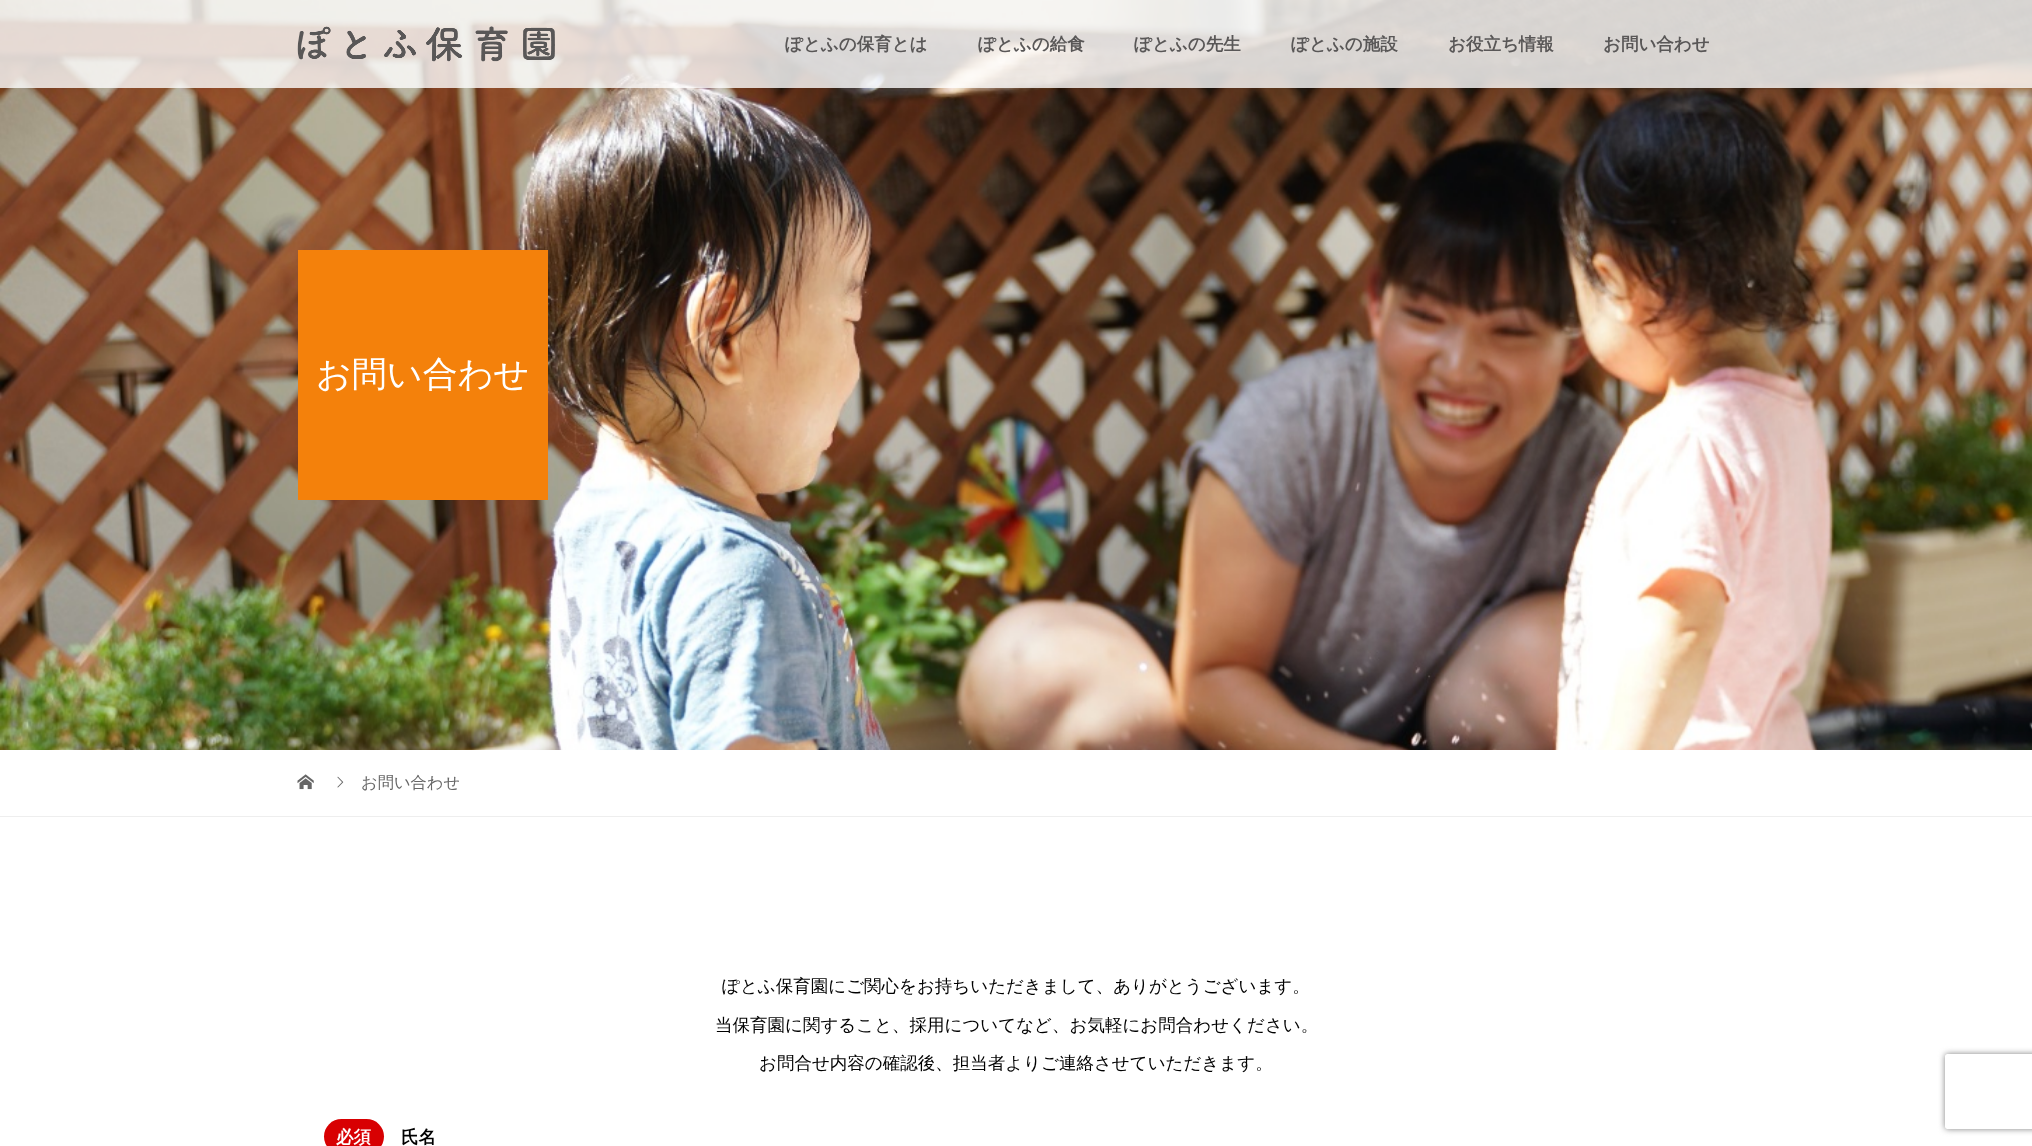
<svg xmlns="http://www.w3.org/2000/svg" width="2032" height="1146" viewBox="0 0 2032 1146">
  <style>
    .t1 { font: bold 17.5px WenQuanYi Zen Hei; fill: #595757; }
    .t2 { font: 500 35px WenQuanYi Zen Hei; fill: #fff; }
    .t3 { font: 500 16.25px WenQuanYi Zen Hei; fill: #666; }
    .t4 { font: 500 17.5px WenQuanYi Zen Hei; fill: #000; }
    .t5 { font: bold 17.5px WenQuanYi Zen Hei; fill: #fff; }
    .t6 { font: bold 17.5px WenQuanYi Zen Hei; fill: #000; }
  </style>
  <defs>
    <clipPath id="clip1"><path d="M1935 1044H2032V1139H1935ZM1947.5 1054H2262.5C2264 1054 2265 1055 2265 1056.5V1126.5C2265 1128 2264 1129 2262.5 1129H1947.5C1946 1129 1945 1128 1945 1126.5V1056.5C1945 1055 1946 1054 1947.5 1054Z" clip-rule="evenodd"/></clipPath>
  </defs>
  <rect width="100%" height="100%" fill="#fff"/>
  <image x="0" y="0" width="2032" height="750" href="images/2.png"/>
  <rect x="0" y="0" width="2032" height="88" fill="#ffffffcc"/>
  <image x="297" y="26" width="258" height="36" href="images/1.png"/>
  <text x="785" y="50" class="t1">ぽとふの保育とは</text>
  <text x="978" y="50" class="t1">ぽとふの給食</text>
  <text x="1134" y="50" class="t1">ぽとふの先生</text>
  <text x="1291" y="50" class="t1">ぽとふの施設</text>
  <text x="1448" y="50" class="t1">お役立ち情報</text>
  <text x="1603" y="50" class="t1">お問い合わせ</text>
  <rect x="298" y="250" width="250" height="250" fill="#f4810b"/>
  <text x="316" y="386" class="t2">お問い合わせ</text>
  <rect x="0" y="816" width="2032" height="1" fill="#eee"/>
  <image x="297" y="774" width="17" height="16" href="images/3.png"/>
  <image x="337" y="776" width="7" height="12" href="images/4.png"/>
  <text x="361" y="788" class="t3">お問い合わせ</text>
  <text x="722" y="992" class="t4">ぽとふ保育園にご関心をお持ちいただきまして、ありがとうございます。</text>
  <text x="715" y="1031" class="t4">当保育園に関すること、採用についてなど、お気軽にお問合わせください。</text>
  <text x="759" y="1069" class="t4">お問合せ内容の確認後、担当者よりご連絡させていただきます。</text>
  <rect x="324" y="1119" width="60" height="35" rx="17.5" fill="#d80002"/>
  <text x="336" y="1143" class="t5">必須</text>
  <text x="401" y="1143" class="t6">氏名</text>
  <g clip-path="url(#clip1)">
    <rect x="1945" y="1054" width="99" height="75" rx="2.5" fill="#808080" filter="blur(3px)"/>
  </g>
</svg>
